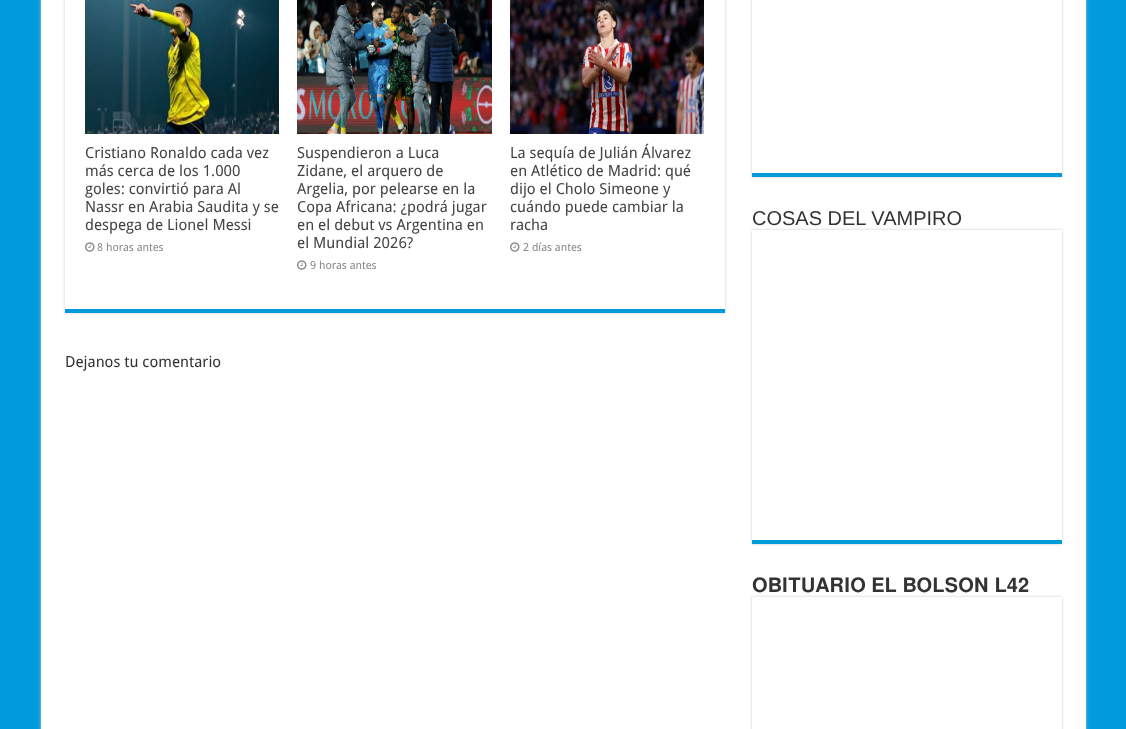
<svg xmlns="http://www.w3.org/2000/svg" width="1126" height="729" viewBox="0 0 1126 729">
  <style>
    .t1 { font: 15.25px Droid Sans; fill: #444; }
    .t2 { font: 11px Droid Sans; fill: #888; }
    .t3 { font: 15.25px Droid Sans; fill: #333; }
    .t4 { font: 20px Liberation Sans; fill: #333; }
    .t5 { font: 20px FreeSans; fill: #333; }
  </style>
  <defs>
    <clipPath id="clip1"><path d="M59 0H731V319H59ZM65-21H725V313H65Z" clip-rule="evenodd"/></clipPath>
    <clipPath id="clip2"><path d="M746 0H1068V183H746ZM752-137H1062V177H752Z" clip-rule="evenodd"/></clipPath>
    <clipPath id="clip3"><path d="M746 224H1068V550H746ZM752 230H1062V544H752Z" clip-rule="evenodd"/></clipPath>
    <clipPath id="clip4"><path d="M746 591H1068V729H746ZM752 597H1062V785H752Z" clip-rule="evenodd"/></clipPath>
  </defs>
  <rect width="100%" height="100%" fill="#009bdb"/>
  <rect x="41" y="-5" width="1045" height="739" fill="#cacaca" filter="blur(1.5px)"/>
  <rect x="41" y="0" width="1045" height="729" fill="#fff"/>
  <g clip-path="url(#clip1)">
    <rect x="65" y="-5" width="660" height="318" fill="#cacaca" filter="blur(1.5px)"/>
  </g>
  <rect x="65" y="309" width="660" height="4" fill="#009bdb"/>
  <image x="85" y="0" width="194" height="134" href="images/1.png"/>
  <text x="85" y="158" class="t1">Cristiano Ronaldo cada vez</text>
  <text x="85" y="176" class="t1">más cerca de los 1.000</text>
  <text x="85" y="194" class="t1">goles: convirtió para Al</text>
  <text x="85" y="212" class="t1">Nassr en Arabia Saudita y se</text>
  <text x="85" y="230" class="t1">despega de Lionel Messi</text>
  <image x="85" y="242" width="10" height="10" href="images/2.png"/>
  <text x="97" y="251" class="t2">8 horas antes</text>
  <image x="297" y="0" width="195" height="134" href="images/3.png"/>
  <text x="297" y="158" class="t1">Suspendieron a Luca</text>
  <text x="297" y="176" class="t1">Zidane, el arquero de</text>
  <text x="297" y="194" class="t1">Argelia, por pelearse en la</text>
  <text x="297" y="212" class="t1">Copa Africana: ¿podrá jugar</text>
  <text x="297" y="230" class="t1">en el debut vs Argentina en</text>
  <text x="297" y="248" class="t1">el Mundial 2026?</text>
  <image x="297" y="260" width="10" height="10" href="images/2.png"/>
  <text x="310" y="269" class="t2">9 horas antes</text>
  <image x="510" y="0" width="194" height="134" href="images/4.png"/>
  <text x="510" y="158" class="t1">La sequía de Julián Álvarez</text>
  <text x="510" y="176" class="t1">en Atlético de Madrid: qué</text>
  <text x="510" y="194" class="t1">dijo el Cholo Simeone y</text>
  <text x="510" y="212" class="t1">cuándo puede cambiar la</text>
  <text x="510" y="230" class="t1">racha</text>
  <image x="510" y="242" width="10" height="10" href="images/2.png"/>
  <text x="523" y="251" class="t2">2 días antes</text>
  <text x="65" y="367" class="t3">Dejanos tu comentario</text>
  <g clip-path="url(#clip2)">
    <rect x="752" y="-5" width="310" height="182" fill="#cacaca" filter="blur(1.5px)"/>
  </g>
  <rect x="752" y="173" width="310" height="4" fill="#009bdb"/>
  <g clip-path="url(#clip3)">
    <rect x="752" y="230" width="310" height="314" fill="#cacaca" filter="blur(1.5px)"/>
  </g>
  <text x="752" y="225" class="t4">COSAS DEL VAMPIRO</text>
  <rect x="752" y="540" width="310" height="4" fill="#009bdb"/>
  <g clip-path="url(#clip4)">
    <rect x="752" y="597" width="310" height="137" fill="#cacaca" filter="blur(1.5px)"/>
  </g>
  <text x="752" y="592" word-spacing="0.5" class="t5">𝐎𝐁𝐈𝐓𝐔𝐀𝐑𝐈𝐎 𝐄𝐋 𝐁𝐎𝐋𝐒𝐎𝐍 𝐋𝟒𝟐</text>
</svg>
